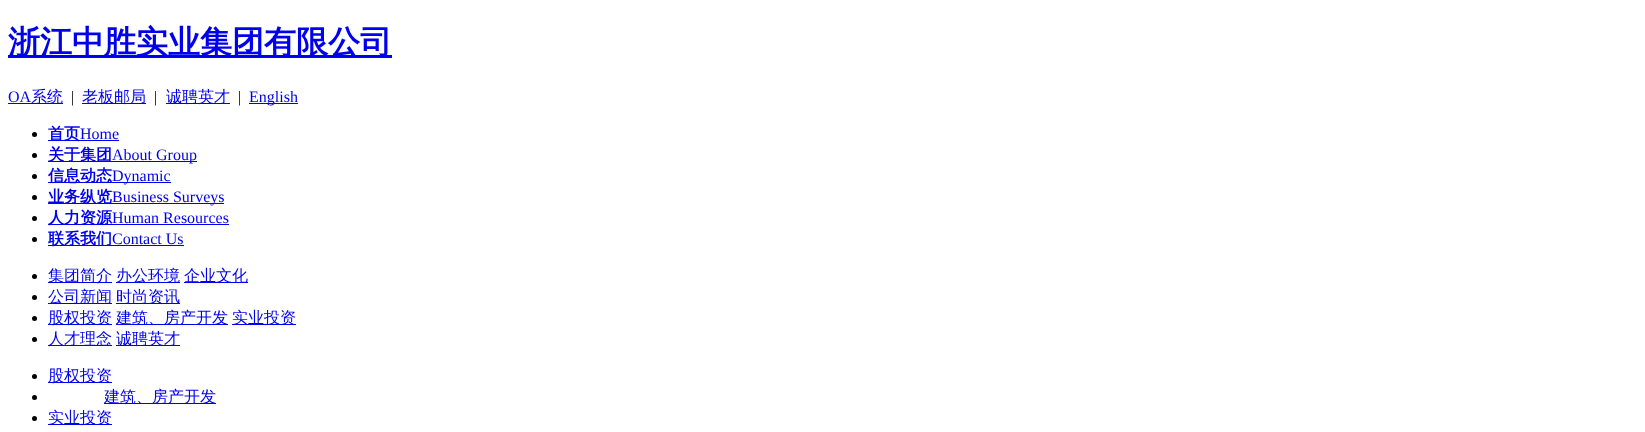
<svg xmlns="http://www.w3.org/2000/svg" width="1645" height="432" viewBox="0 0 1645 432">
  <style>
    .t1 { font: bold 32px WenQuanYi Zen Hei; fill: #00e; }
    .t2 { font: 16px Liberation Serif; fill: #00e; }
    .t3 { font: 500 16px WenQuanYi Zen Hei; fill: #00e; }
    .t4 { font: 16px Liberation Serif; fill: #000; }
    .t5 { font: bold 16px WenQuanYi Zen Hei; fill: #00e; }
  </style>
  <rect width="100%" height="100%" fill="#fff"/>
  <rect x="8" y="55" width="384" height="3" fill="#00e"/>
  <text x="8" y="53" class="t1">浙江中胜实业集团有限公司</text>
  <text x="8" y="102" class="t2">OA</text>
  <rect x="8" y="103" width="55" height="1" fill="#00e"/>
  <text x="31" y="102" class="t3">系统</text>
  <text x="71" y="102" class="t4">|</text>
  <rect x="82" y="103" width="64" height="1" fill="#00e"/>
  <text x="82" y="102" class="t3">老板邮局</text>
  <text x="154" y="102" class="t4">|</text>
  <rect x="166" y="103" width="64" height="1" fill="#00e"/>
  <text x="166" y="102" class="t3">诚聘英才</text>
  <text x="238" y="102" class="t4">|</text>
  <rect x="249" y="103" width="49" height="1" fill="#00e"/>
  <text x="249" y="102" class="t2">English</text>
  <circle cx="34.5" cy="134.5" r="2.5" fill="#000"/>
  <rect x="48" y="140" width="71" height="1" fill="#00e"/>
  <text x="48" y="139" class="t5">首页</text>
  <text x="80" y="139" class="t2">Home</text>
  <circle cx="34.5" cy="155.5" r="2.5" fill="#000"/>
  <rect x="48" y="161" width="149" height="1" fill="#00e"/>
  <text x="48" y="160" class="t5">关于集团</text>
  <text x="112" y="160" class="t2">About Group</text>
  <circle cx="34.5" cy="176.5" r="2.5" fill="#000"/>
  <rect x="48" y="182" width="123" height="1" fill="#00e"/>
  <text x="48" y="181" class="t5">信息动态</text>
  <text x="112" y="181" class="t2">Dynamic</text>
  <circle cx="34.5" cy="197.5" r="2.5" fill="#000"/>
  <rect x="48" y="203" width="176" height="1" fill="#00e"/>
  <text x="48" y="202" class="t5">业务纵览</text>
  <text x="112" y="202" class="t2">Business Surveys</text>
  <circle cx="34.5" cy="218.5" r="2.5" fill="#000"/>
  <rect x="48" y="224" width="181" height="1" fill="#00e"/>
  <text x="48" y="223" class="t5">人力资源</text>
  <text x="112" y="223" class="t2">Human Resources</text>
  <circle cx="34.5" cy="239.5" r="2.5" fill="#000"/>
  <rect x="48" y="245" width="136" height="1" fill="#00e"/>
  <text x="48" y="244" class="t5">联系我们</text>
  <text x="112" y="244" class="t2">Contact Us</text>
  <circle cx="34.5" cy="276.5" r="2.5" fill="#000"/>
  <rect x="48" y="282" width="64" height="1" fill="#00e"/>
  <text x="48" y="281" class="t3">集团简介</text>
  <rect x="116" y="282" width="64" height="1" fill="#00e"/>
  <text x="116" y="281" class="t3">办公环境</text>
  <rect x="184" y="282" width="64" height="1" fill="#00e"/>
  <text x="184" y="281" class="t3">企业文化</text>
  <circle cx="34.5" cy="297.5" r="2.5" fill="#000"/>
  <rect x="48" y="303" width="64" height="1" fill="#00e"/>
  <text x="48" y="302" class="t3">公司新闻</text>
  <rect x="116" y="303" width="64" height="1" fill="#00e"/>
  <text x="116" y="302" class="t3">时尚资讯</text>
  <circle cx="34.5" cy="318.5" r="2.5" fill="#000"/>
  <rect x="48" y="324" width="64" height="1" fill="#00e"/>
  <text x="48" y="323" class="t3">股权投资</text>
  <rect x="116" y="324" width="112" height="1" fill="#00e"/>
  <text x="116" y="323" class="t3">建筑、房产开发</text>
  <rect x="232" y="324" width="64" height="1" fill="#00e"/>
  <text x="232" y="323" class="t3">实业投资</text>
  <circle cx="34.5" cy="339.5" r="2.5" fill="#000"/>
  <rect x="48" y="345" width="64" height="1" fill="#00e"/>
  <text x="48" y="344" class="t3">人才理念</text>
  <rect x="116" y="345" width="64" height="1" fill="#00e"/>
  <text x="116" y="344" class="t3">诚聘英才</text>
  <circle cx="34.5" cy="376.5" r="2.5" fill="#000"/>
  <rect x="48" y="382" width="64" height="1" fill="#00e"/>
  <text x="48" y="381" class="t3">股权投资</text>
  <circle cx="34.5" cy="397.5" r="2.5" fill="#000"/>
  <rect x="104" y="403" width="112" height="1" fill="#00e"/>
  <text x="104" y="402" class="t3">建筑、房产开发</text>
  <circle cx="34.5" cy="418.5" r="2.5" fill="#000"/>
  <rect x="48" y="424" width="64" height="1" fill="#00e"/>
  <text x="48" y="423" class="t3">实业投资</text>
</svg>
